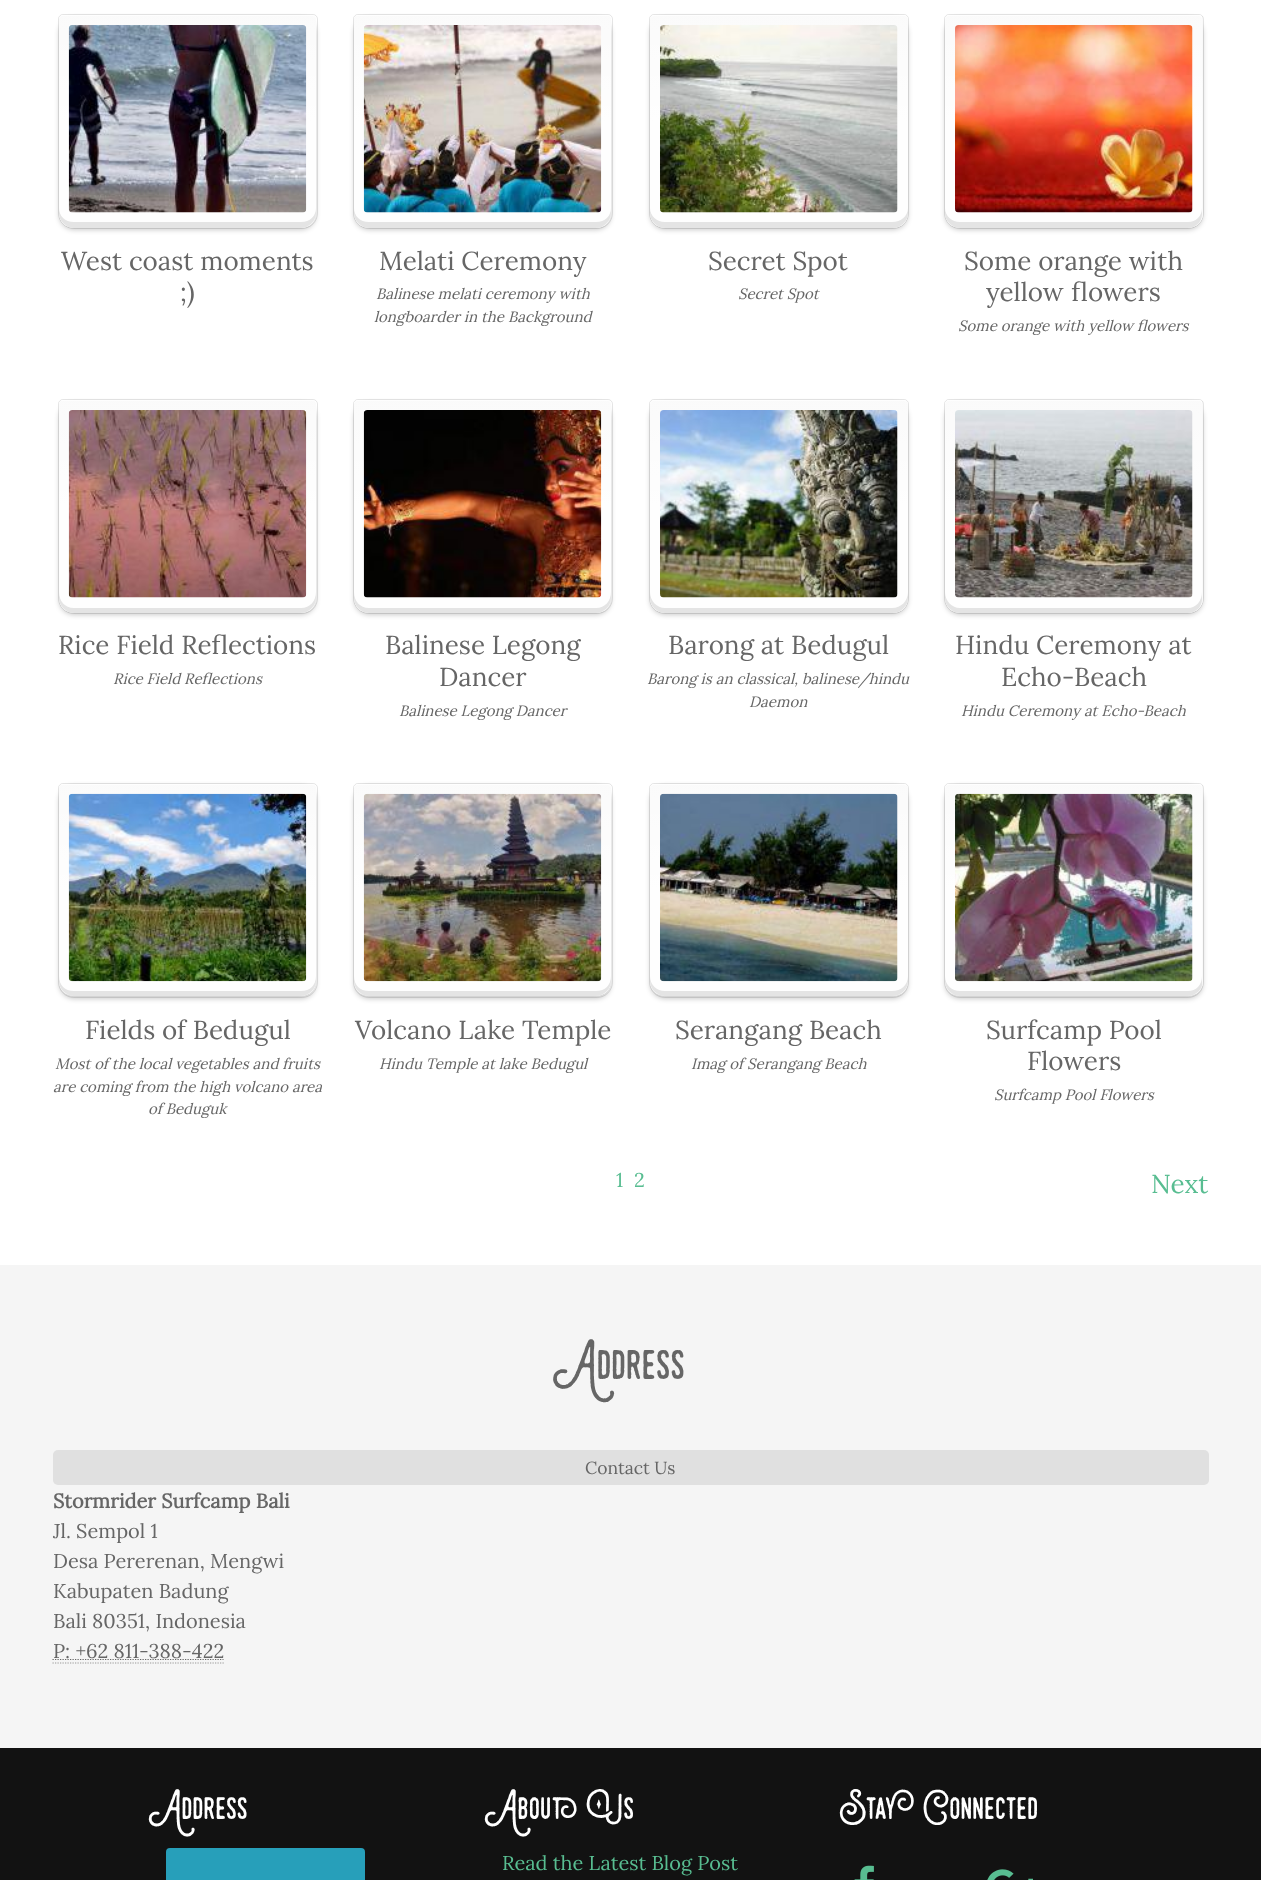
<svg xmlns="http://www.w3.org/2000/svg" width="1261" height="1880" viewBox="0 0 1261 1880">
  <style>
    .t1 { font: 26px Lora; fill: #666; }
    .t2 { font: italic 15px Lora; fill: #666; }
    .t3 { font: 20px Lora; fill: #58bd91; }
    .t4 { font: 26px Lora; fill: #58bd91; }
    .t5 { font: 40px 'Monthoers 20'; fill: #666; }
    .t6 { font: 17.5px Lora; fill: #666; }
    .t7 { font: bold 20px Lora; fill: #666; }
    .t8 { font: 20px Lora; fill: #666; }
    .t9 { font: 30px 'Monthoers 20'; fill: #fff; }
  </style>
  <defs>
    <linearGradient id="g1" gradientUnits="userSpaceOnUse" x1="59" y1="228" x2="59" y2="15"><stop offset="0.5" stop-color="#fff" stop-opacity="0.8"/><stop offset="1" stop-color="#fff" stop-opacity="0.1"/></linearGradient>
    <linearGradient id="g2" gradientUnits="userSpaceOnUse" x1="354" y1="228" x2="354" y2="15"><stop offset="0.5" stop-color="#fff" stop-opacity="0.8"/><stop offset="1" stop-color="#fff" stop-opacity="0.1"/></linearGradient>
    <linearGradient id="g3" gradientUnits="userSpaceOnUse" x1="650" y1="228" x2="650" y2="15"><stop offset="0.5" stop-color="#fff" stop-opacity="0.8"/><stop offset="1" stop-color="#fff" stop-opacity="0.1"/></linearGradient>
    <linearGradient id="g4" gradientUnits="userSpaceOnUse" x1="945" y1="228" x2="945" y2="15"><stop offset="0.5" stop-color="#fff" stop-opacity="0.8"/><stop offset="1" stop-color="#fff" stop-opacity="0.1"/></linearGradient>
    <linearGradient id="g5" gradientUnits="userSpaceOnUse" x1="59" y1="613" x2="59" y2="400"><stop offset="0.5" stop-color="#fff" stop-opacity="0.8"/><stop offset="1" stop-color="#fff" stop-opacity="0.1"/></linearGradient>
    <linearGradient id="g6" gradientUnits="userSpaceOnUse" x1="354" y1="613" x2="354" y2="400"><stop offset="0.5" stop-color="#fff" stop-opacity="0.8"/><stop offset="1" stop-color="#fff" stop-opacity="0.1"/></linearGradient>
    <linearGradient id="g7" gradientUnits="userSpaceOnUse" x1="650" y1="613" x2="650" y2="400"><stop offset="0.5" stop-color="#fff" stop-opacity="0.8"/><stop offset="1" stop-color="#fff" stop-opacity="0.1"/></linearGradient>
    <linearGradient id="g8" gradientUnits="userSpaceOnUse" x1="945" y1="613" x2="945" y2="400"><stop offset="0.5" stop-color="#fff" stop-opacity="0.8"/><stop offset="1" stop-color="#fff" stop-opacity="0.1"/></linearGradient>
    <linearGradient id="g9" gradientUnits="userSpaceOnUse" x1="59" y1="996" x2="59" y2="784"><stop offset="0.5" stop-color="#fff" stop-opacity="0.8"/><stop offset="1" stop-color="#fff" stop-opacity="0.1"/></linearGradient>
    <linearGradient id="g10" gradientUnits="userSpaceOnUse" x1="354" y1="996" x2="354" y2="784"><stop offset="0.5" stop-color="#fff" stop-opacity="0.8"/><stop offset="1" stop-color="#fff" stop-opacity="0.1"/></linearGradient>
    <linearGradient id="g11" gradientUnits="userSpaceOnUse" x1="650" y1="996" x2="650" y2="784"><stop offset="0.5" stop-color="#fff" stop-opacity="0.8"/><stop offset="1" stop-color="#fff" stop-opacity="0.1"/></linearGradient>
    <linearGradient id="g12" gradientUnits="userSpaceOnUse" x1="945" y1="996" x2="945" y2="784"><stop offset="0.5" stop-color="#fff" stop-opacity="0.8"/><stop offset="1" stop-color="#fff" stop-opacity="0.1"/></linearGradient>
  </defs>
  <rect width="100%" height="100%" fill="#fff"/>
  <rect x="59" y="18" width="257" height="212" rx="15" fill="#00000033" filter="blur(2.5px)"/>
  <path d="M63 14.5H313C315.5 14.5 317.5 16.5 317.5 19V213C317.5 221.5 310.5 228.5 302 228.5H74C65.5 228.5 58.5 221.5 58.5 213V19C58.5 16.5 60.5 14.5 63 14.5Z" fill="none" stroke="#0000001a"/>
  <path d="M63 15H312C314 15 316 17 316 19V213C316 221.5 309.5 228 301 228H74C65.5 228 59 221.5 59 213V19C59 17 61 15 63 15Z" fill="#fafafa"/>
  <path d="M63 15H312C314 15 316 17 316 19V213C316 221.5 309.5 228 301 228H74C65.5 228 59 221.5 59 213V19C59 17 61 15 63 15Z" fill="url(#g1)"/>
  <path d="M59 208V213C59 221 66 228 74 228H301C309 228 316 221 316 213V208C316 216 310 222 301 222H74C65 222 59 216 59 208Z" fill="#0000001a"/>
  <path d="M62 16H312C315 16 316 18 316 20V19C316 17 314 15 312 15H63C61 15 59 17 59 19V20C59 18 60 16 62 16Z" fill="#fefefe"/>
  <image x="68" y="25" width="239" height="188" href="images/1.png"/>
  <text x="61" y="270" class="t1">West coast moments</text>
  <text x="180" y="301" class="t1">;)</text>
  <rect x="354" y="18" width="257" height="212" rx="15" fill="#00000033" filter="blur(2.5px)"/>
  <path d="M358 14.5H608C610.5 14.5 612.5 16.5 612.5 19V213C612.5 221.5 605.5 228.5 597 228.5H369C360.5 228.5 353.5 221.5 353.5 213V19C353.5 16.5 355.5 14.5 358 14.5Z" fill="none" stroke="#0000001a"/>
  <path d="M358 15H607C609 15 611 17 611 19V213C611 221.5 604.5 228 596 228H369C360.5 228 354 221.5 354 213V19C354 17 356 15 358 15Z" fill="#fafafa"/>
  <path d="M358 15H607C609 15 611 17 611 19V213C611 221.5 604.5 228 596 228H369C360.5 228 354 221.5 354 213V19C354 17 356 15 358 15Z" fill="url(#g2)"/>
  <path d="M354 208V213C354 221 361 228 369 228H596C604 228 611 221 611 213V208C611 216 605 222 596 222H369C360 222 354 216 354 208Z" fill="#0000001a"/>
  <path d="M358 16H608C610 16 611 18 611 20V19C611 17 609 15 607 15H358C356 15 354 17 354 19V20C354 18 355 16 358 16Z" fill="#fefefe"/>
  <image x="363" y="25" width="239" height="188" href="images/2.png"/>
  <text x="379" y="270" class="t1">Melati Ceremony</text>
  <text x="376" y="299" class="t2">Balinese melati ceremony with</text>
  <text x="374" y="322" class="t2">longboarder in the Background</text>
  <rect x="650" y="18" width="258" height="212" rx="15" fill="#00000033" filter="blur(2.5px)"/>
  <path d="M654 14.5H904C906.5 14.5 908.5 16.5 908.5 19V213C908.5 221.5 901.5 228.5 893 228.5H665C656.5 228.5 649.5 221.5 649.5 213V19C649.5 16.5 651.5 14.5 654 14.5Z" fill="none" stroke="#0000001a"/>
  <path d="M654 15H904C906 15 908 17 908 19V213C908 221.5 901.5 228 893 228H665C656.5 228 650 221.5 650 213V19C650 17 652 15 654 15Z" fill="#fafafa"/>
  <path d="M654 15H904C906 15 908 17 908 19V213C908 221.5 901.5 228 893 228H665C656.5 228 650 221.5 650 213V19C650 17 652 15 654 15Z" fill="url(#g3)"/>
  <path d="M650 208V213C650 221 657 228 665 228H893C901 228 908 221 908 213V208C908 216 901 222 892 222H665C657 222 650 216 650 208Z" fill="#0000001a"/>
  <path d="M654 16H904C906 16 908 18 908 20V19C908 17 906 15 904 15H654C652 15 650 17 650 19V20C650 18 652 16 654 16Z" fill="#fefefe"/>
  <image x="660" y="25" width="238" height="188" href="images/3.png"/>
  <text x="708" y="270" class="t1">Secret Spot</text>
  <text x="738" y="299" class="t2">Secret Spot</text>
  <rect x="945" y="18" width="258" height="212" rx="15" fill="#00000033" filter="blur(2.5px)"/>
  <path d="M949 14.5H1199C1201.5 14.5 1203.5 16.5 1203.5 19V213C1203.5 221.5 1196.5 228.5 1188 228.5H960C951.5 228.5 944.5 221.5 944.5 213V19C944.5 16.5 946.5 14.5 949 14.5Z" fill="none" stroke="#0000001a"/>
  <path d="M949 15H1199C1201 15 1203 17 1203 19V213C1203 221.5 1196.5 228 1188 228H960C951.5 228 945 221.5 945 213V19C945 17 947 15 949 15Z" fill="#fafafa"/>
  <path d="M949 15H1199C1201 15 1203 17 1203 19V213C1203 221.5 1196.5 228 1188 228H960C951.5 228 945 221.5 945 213V19C945 17 947 15 949 15Z" fill="url(#g4)"/>
  <path d="M945 208V213C945 221 952 228 960 228H1188C1196 228 1203 221 1203 213V19C1203 18 1203 17 1202 16V208C1202 216 1196 222 1188 222H960C952 222 945 216 945 208Z" fill="#0000001a"/>
  <path d="M949 16H1199C1201 16 1202 18 1202 20V214C1202 217 1201 220 1199 223C1202 220 1203 217 1203 213V19C1203 17 1201 15 1199 15H949C947 15 945 17 945 19V20C945 18 947 16 949 16Z" fill="#ffffffcc"/>
  <image x="955" y="25" width="238" height="188" href="images/4.png"/>
  <text x="964" y="270" class="t1">Some orange with</text>
  <text x="986" y="301" word-spacing="1" class="t1">yellow flowers</text>
  <text x="958" y="331" class="t2">Some orange with yellow flowers</text>
  <rect x="59" y="403" width="257" height="212" rx="15" fill="#00000033" filter="blur(2.5px)"/>
  <path d="M63 399.5H313C315.5 399.5 317.5 401.5 317.5 404V598C317.5 606.5 310.5 613.5 302 613.5H74C65.5 613.5 58.5 606.5 58.5 598V404C58.5 401.5 60.5 399.5 63 399.5Z" fill="none" stroke="#0000001a"/>
  <path d="M63 400H312C314 400 316 402 316 404V598C316 606.5 309.5 613 301 613H74C65.5 613 59 606.5 59 598V404C59 402 61 400 63 400Z" fill="#fafafa"/>
  <path d="M63 400H312C314 400 316 402 316 404V598C316 606.5 309.5 613 301 613H74C65.5 613 59 606.5 59 598V404C59 402 61 400 63 400Z" fill="url(#g5)"/>
  <path d="M59 592V598C59 606 66 613 74 613H301C309 613 316 606 316 598V592C316 601 310 608 301 608H74C65 608 59 601 59 592Z" fill="#0000001a"/>
  <path d="M62 401H312C315 401 316 403 316 405V404C316 402 314 400 312 400H63C61 400 59 402 59 404V405C59 403 60 401 62 401Z" fill="#fefefe"/>
  <image x="68" y="410" width="239" height="188" href="images/5.png"/>
  <text x="58" y="654" class="t1">Rice Field Reflections</text>
  <text x="113" y="684" class="t2">Rice Field Reflections</text>
  <rect x="354" y="403" width="257" height="212" rx="15" fill="#00000033" filter="blur(2.5px)"/>
  <path d="M358 399.5H608C610.5 399.5 612.5 401.5 612.5 404V598C612.5 606.5 605.5 613.5 597 613.5H369C360.5 613.5 353.5 606.5 353.5 598V404C353.5 401.5 355.5 399.5 358 399.5Z" fill="none" stroke="#0000001a"/>
  <path d="M358 400H607C609 400 611 402 611 404V598C611 606.5 604.5 613 596 613H369C360.5 613 354 606.5 354 598V404C354 402 356 400 358 400Z" fill="#fafafa"/>
  <path d="M358 400H607C609 400 611 402 611 404V598C611 606.5 604.5 613 596 613H369C360.5 613 354 606.5 354 598V404C354 402 356 400 358 400Z" fill="url(#g6)"/>
  <path d="M354 592V598C354 606 361 613 369 613H596C604 613 611 606 611 598V592C611 601 605 608 596 608H369C360 608 354 601 354 592Z" fill="#0000001a"/>
  <path d="M358 401H608C610 401 611 403 611 405V404C611 402 609 400 607 400H358C356 400 354 402 354 404V405C354 403 355 401 358 401Z" fill="#fefefe"/>
  <image x="363" y="410" width="239" height="188" href="images/6.png"/>
  <text x="385" y="654" class="t1">Balinese Legong</text>
  <text x="439" y="686" class="t1">Dancer</text>
  <text x="399" y="716" class="t2">Balinese Legong Dancer</text>
  <rect x="650" y="403" width="258" height="212" rx="15" fill="#00000033" filter="blur(2.5px)"/>
  <path d="M654 399.5H904C906.5 399.5 908.5 401.5 908.5 404V598C908.5 606.5 901.5 613.5 893 613.5H665C656.5 613.5 649.5 606.5 649.5 598V404C649.5 401.5 651.5 399.5 654 399.5Z" fill="none" stroke="#0000001a"/>
  <path d="M654 400H904C906 400 908 402 908 404V598C908 606.5 901.5 613 893 613H665C656.5 613 650 606.5 650 598V404C650 402 652 400 654 400Z" fill="#fafafa"/>
  <path d="M654 400H904C906 400 908 402 908 404V598C908 606.5 901.5 613 893 613H665C656.5 613 650 606.5 650 598V404C650 402 652 400 654 400Z" fill="url(#g7)"/>
  <path d="M650 592V598C650 606 657 613 665 613H893C901 613 908 606 908 598V592C908 601 901 608 892 608H665C657 608 650 601 650 592Z" fill="#0000001a"/>
  <path d="M654 401H904C906 401 908 403 908 405V404C908 402 906 400 904 400H654C652 400 650 402 650 404V405C650 403 652 401 654 401Z" fill="#fefefe"/>
  <image x="660" y="410" width="238" height="188" href="images/7.png"/>
  <text x="668" y="654" class="t1">Barong at Bedugul</text>
  <text x="647" y="684" class="t2">Barong is an classical, balinese/hindu</text>
  <text x="749" y="707" class="t2">Daemon</text>
  <rect x="945" y="403" width="258" height="212" rx="15" fill="#00000033" filter="blur(2.5px)"/>
  <path d="M949 399.5H1199C1201.5 399.5 1203.5 401.5 1203.5 404V598C1203.5 606.5 1196.5 613.5 1188 613.5H960C951.5 613.5 944.5 606.5 944.5 598V404C944.5 401.5 946.5 399.5 949 399.5Z" fill="none" stroke="#0000001a"/>
  <path d="M949 400H1199C1201 400 1203 402 1203 404V598C1203 606.5 1196.5 613 1188 613H960C951.5 613 945 606.5 945 598V404C945 402 947 400 949 400Z" fill="#fafafa"/>
  <path d="M949 400H1199C1201 400 1203 402 1203 404V598C1203 606.5 1196.5 613 1188 613H960C951.5 613 945 606.5 945 598V404C945 402 947 400 949 400Z" fill="url(#g8)"/>
  <path d="M945 592V598C945 606 952 613 960 613H1188C1196 613 1203 606 1203 598V404C1203 403 1203 402 1202 401V592C1202 601 1196 608 1188 608H960C952 608 945 601 945 592Z" fill="#0000001a"/>
  <path d="M949 401H1199C1201 401 1202 403 1202 405V599C1202 602 1201 605 1199 608C1202 605 1203 602 1203 598V404C1203 402 1201 400 1199 400H949C947 400 945 402 945 404V405C945 403 947 401 949 401Z" fill="#ffffffcc"/>
  <image x="955" y="410" width="238" height="188" href="images/8.png"/>
  <text x="955" y="654" class="t1">Hindu Ceremony at</text>
  <text x="1001" y="686" class="t1">Echo-Beach</text>
  <text x="961" y="716" class="t2">Hindu Ceremony at Echo-Beach</text>
  <rect x="59" y="786" width="257" height="213" rx="15" fill="#00000033" filter="blur(2.5px)"/>
  <path d="M63 783.5H313C315.5 783.5 317.5 785.5 317.5 788V982C317.5 990.5 310.5 997.5 302 997.5H74C65.5 997.5 58.5 990.5 58.5 982V788C58.5 785.5 60.5 783.5 63 783.5Z" fill="none" stroke="#0000001a"/>
  <path d="M63 784H312C314 784 316 786 316 788V981C316 989.5 309.5 996 301 996H74C65.5 996 59 989.5 59 981V788C59 786 61 784 63 784Z" fill="#fafafa"/>
  <path d="M63 784H312C314 784 316 786 316 788V981C316 989.5 309.5 996 301 996H74C65.5 996 59 989.5 59 981V788C59 786 61 784 63 784Z" fill="url(#g9)"/>
  <path d="M59 976V981C59 989 66 996 74 996H301C309 996 316 989 316 981V976C316 985 310 991 301 991H74C65 991 59 985 59 976Z" fill="#0000001a"/>
  <path d="M62 785H312C315 785 316 787 316 789V788C316 786 314 784 312 784H63C61 784 59 786 59 788V789C59 787 60 785 62 785Z" fill="#fefefe"/>
  <image x="68" y="793" width="239" height="189" href="images/9.png"/>
  <text x="85" y="1039" class="t1">Fields of Bedugul</text>
  <text x="55" y="1069" class="t2">Most of the local vegetables and fruits</text>
  <text x="53" y="1092" class="t2">are coming from the high volcano area</text>
  <text x="148" y="1114" class="t2">of Beduguk</text>
  <rect x="354" y="786" width="257" height="213" rx="15" fill="#00000033" filter="blur(2.5px)"/>
  <path d="M358 783.5H608C610.5 783.5 612.5 785.5 612.5 788V982C612.5 990.5 605.5 997.5 597 997.5H369C360.5 997.5 353.5 990.5 353.5 982V788C353.5 785.5 355.5 783.5 358 783.5Z" fill="none" stroke="#0000001a"/>
  <path d="M358 784H607C609 784 611 786 611 788V981C611 989.5 604.5 996 596 996H369C360.5 996 354 989.5 354 981V788C354 786 356 784 358 784Z" fill="#fafafa"/>
  <path d="M358 784H607C609 784 611 786 611 788V981C611 989.5 604.5 996 596 996H369C360.5 996 354 989.5 354 981V788C354 786 356 784 358 784Z" fill="url(#g10)"/>
  <path d="M354 976V981C354 989 361 996 369 996H596C604 996 611 989 611 981V976C611 985 605 991 596 991H369C360 991 354 985 354 976Z" fill="#0000001a"/>
  <path d="M358 785H608C610 785 611 787 611 789V788C611 786 609 784 607 784H358C356 784 354 786 354 788V789C354 787 355 785 358 785Z" fill="#fefefe"/>
  <image x="363" y="793" width="239" height="189" href="images/10.png"/>
  <text x="355" y="1039" class="t1">Volcano Lake Temple</text>
  <text x="379" y="1069" class="t2">Hindu Temple at lake Bedugul</text>
  <rect x="650" y="786" width="258" height="213" rx="15" fill="#00000033" filter="blur(2.5px)"/>
  <path d="M654 783.5H904C906.5 783.5 908.5 785.5 908.5 788V982C908.5 990.5 901.5 997.5 893 997.5H665C656.5 997.5 649.5 990.5 649.5 982V788C649.5 785.5 651.5 783.5 654 783.5Z" fill="none" stroke="#0000001a"/>
  <path d="M654 784H904C906 784 908 786 908 788V981C908 989.5 901.5 996 893 996H665C656.5 996 650 989.5 650 981V788C650 786 652 784 654 784Z" fill="#fafafa"/>
  <path d="M654 784H904C906 784 908 786 908 788V981C908 989.5 901.5 996 893 996H665C656.5 996 650 989.5 650 981V788C650 786 652 784 654 784Z" fill="url(#g11)"/>
  <path d="M650 976V981C650 989 657 996 665 996H893C901 996 908 989 908 981V976C908 985 901 991 892 991H665C657 991 650 985 650 976Z" fill="#0000001a"/>
  <path d="M654 785H904C906 785 908 787 908 789V788C908 786 906 784 904 784H654C652 784 650 786 650 788V789C650 787 652 785 654 785Z" fill="#fefefe"/>
  <image x="660" y="793" width="238" height="189" href="images/11.png"/>
  <text x="675" y="1039" class="t1">Serangang Beach</text>
  <text x="691" y="1069" class="t2">Imag of Serangang Beach</text>
  <rect x="945" y="786" width="258" height="213" rx="15" fill="#00000033" filter="blur(2.5px)"/>
  <path d="M949 783.5H1199C1201.5 783.5 1203.5 785.5 1203.5 788V982C1203.5 990.5 1196.5 997.5 1188 997.5H960C951.5 997.5 944.5 990.5 944.5 982V788C944.5 785.5 946.5 783.5 949 783.5Z" fill="none" stroke="#0000001a"/>
  <path d="M949 784H1199C1201 784 1203 786 1203 788V981C1203 989.5 1196.5 996 1188 996H960C951.5 996 945 989.5 945 981V788C945 786 947 784 949 784Z" fill="#fafafa"/>
  <path d="M949 784H1199C1201 784 1203 786 1203 788V981C1203 989.5 1196.5 996 1188 996H960C951.5 996 945 989.5 945 981V788C945 786 947 784 949 784Z" fill="url(#g12)"/>
  <path d="M945 976V981C945 989 952 996 960 996H1188C1196 996 1203 989 1203 981V788C1203 787 1203 786 1202 785V976C1202 985 1196 991 1188 991H960C952 991 945 985 945 976Z" fill="#0000001a"/>
  <path d="M949 785H1199C1201 785 1202 787 1202 789V982C1202 985 1202 987 1201 989C1202 987 1203 984 1203 981V788C1203 786 1201 784 1199 784H949C947 784 945 786 945 788V789C945 787 947 785 949 785Z" fill="#ffffffcc"/>
  <image x="955" y="793" width="238" height="189" href="images/12.png"/>
  <text x="986" y="1039" class="t1">Surfcamp Pool</text>
  <text x="1027" y="1070" class="t1">Flowers</text>
  <text x="994" y="1100" class="t2">Surfcamp Pool Flowers</text>
  <text x="616" y="1187" class="t3">1</text>
  <text x="634" y="1187" class="t3">2</text>
  <text x="1151" y="1193" class="t4">Next</text>
  <rect x="0" y="1265" width="1261" height="483" fill="#f5f5f5"/>
  <text x="576" y="1379" class="t5">Address</text>
  <rect x="53" y="1450" width="1156" height="35" rx="5" fill="#e0e0e0"/>
  <text x="585" y="1474" class="t6">Contact Us</text>
  <text x="53" y="1508" class="t7">Stormrider Surfcamp Bali</text>
  <text x="53" y="1538" class="t8">Jl. Sempol 1</text>
  <text x="53" y="1568" class="t8">Desa Pererenan, Mengwi</text>
  <text x="53" y="1598" class="t8">Kabupaten Badung</text>
  <text x="53" y="1628" class="t8">Bali 80351, Indonesia</text>
  <path d="M52.5 1659.5H223.5" fill="none" stroke="#666" stroke-width="1.2" stroke-dasharray="1.25 1.25"/>
  <text x="53" y="1658" class="t8">P: +62 811-388-422</text>
  <path d="M52.5 1663H224" fill="none" stroke="#999" stroke-width="1.2" stroke-dasharray="1.25 1.25"/>
  <rect x="0" y="1748" width="1261" height="132" fill="#121212"/>
  <text x="166" y="1819" class="t9">Address</text>
  <rect x="167.5" y="1849.5" width="196" height="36" rx="2.5" fill="#279fba" stroke="#279fba" stroke-width="3"/>
  <text x="502" y="1819" class="t9">About Us</text>
  <text x="502" y="1870" class="t3">Read the Latest Blog Post</text>
  <text x="839" y="1819" class="t9">Stay Connected</text>
  <image x="854" y="1865" width="20" height="15" href="images/13.png"/>
  <image x="987" y="1869" width="46" height="11" href="images/14.png"/>
</svg>
